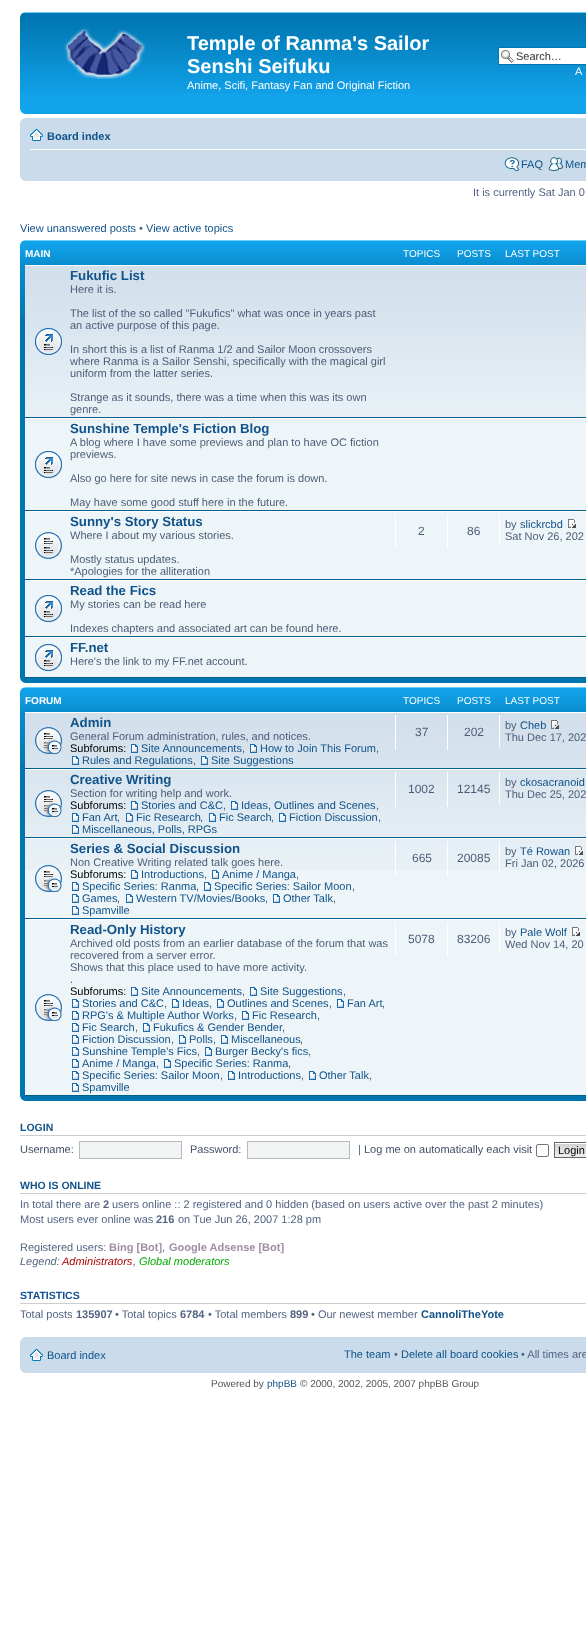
<svg xmlns="http://www.w3.org/2000/svg" width="586" height="1634" viewBox="0 0 586 1634">
  <style>
    .t1 { font: bold 20px Liberation Sans; fill: #fff; }
    .t2 { font: 11px Liberation Sans; fill: #fff; }
    .t3 { font: 11px Liberation Sans; fill: #333; }
    .t4 { font: bold 11px Liberation Sans; fill: #105289; }
    .t5 { font: 11px Liberation Sans; fill: #105289; }
    .t6 { font: 11px Liberation Sans; fill: #536482; }
    .t7 { font: bold 10px Liberation Sans; fill: #fff; }
    .t8 { font: 10px Liberation Sans; fill: #fff; }
    .t9 { font: bold 13.25px Liberation Sans; fill: #105289; }
    .t10 { font: 11px Liberation Sans; fill: #4c5d77; }
    .t11 { font: 12px Liberation Sans; fill: #4c5d77; }
    .t12 { font: 11px Liberation Sans; fill: #000; }
    .t13 { font: bold 10.5px Liberation Sans; fill: #105289; }
    .t14 { font: 11px Liberation Sans; fill: #425067; }
    .t15 { font: bold 11px Liberation Sans; fill: #536482; }
    .t16 { font: bold 11px Liberation Sans; fill: #9e8da7; }
    .t17 { font: italic 11px Liberation Sans; fill: #536482; }
    .t18 { font: italic 11px Liberation Sans; fill: #a00; }
    .t19 { font: italic 11px Liberation Sans; fill: #0a0; }
    .t20 { font: bold 10.5px Liberation Sans; fill: #115098; }
    .t21 { font: 10px Liberation Sans; fill: #555; }
    .t22 { font: 10px Liberation Sans; fill: #105289; }
  </style>
  <rect width="100%" height="100%" fill="#fff"/>
  <rect x="20" y="94" width="566" height="20" fill="#12a3eb"/>
  <image x="20" y="12" width="566" height="82" href="images/1.png"/>
  <image x="20" y="12" width="5" height="5" href="images/2.png"/>
  <image x="64" y="27" width="82" height="52" href="images/3.png"/>
  <text x="187" y="50" class="t1">Temple of Ranma's Sailor</text>
  <text x="187" y="73" class="t1">Senshi Seifuku</text>
  <text x="187" y="89" class="t2">Anime, Scifi, Fantasy Fan and Original Fiction</text>
  <rect x="499" y="48" width="87" height="16" fill="#fff"/>
  <image x="501" y="50" width="13" height="13" href="images/4.png"/>
  <rect x="498.5" y="47.5" width="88" height="17" fill="none" stroke="#0075b0"/>
  <text x="516" y="60" class="t3">Search…</text>
  <text x="575" y="75" class="t2">A</text>
  <image x="20" y="109" width="5" height="5" href="images/5.png"/>
  <rect x="20" y="118" width="566" height="63" fill="#cadceb"/>
  <image x="20" y="118" width="5" height="5" href="images/6.png"/>
  <rect x="30" y="149" width="556" height="1" fill="#fff"/>
  <image x="30" y="129" width="13" height="12" href="images/7.png"/>
  <text x="47" y="140" class="t4">Board index</text>
  <image x="504" y="157" width="16" height="14" href="images/8.png"/>
  <text x="521" y="168" class="t5">FAQ</text>
  <image x="548" y="157" width="16" height="14" href="images/9.png"/>
  <text x="565" y="168" class="t5">Mem</text>
  <image x="20" y="176" width="5" height="5" href="images/10.png"/>
  <text x="473" y="196" class="t6">It is currently Sat Jan 0</text>
  <text x="20" y="232" class="t5">View unanswered posts</text>
  <text x="139" y="232" class="t6">•</text>
  <text x="146" y="232" class="t5">View active topics</text>
  <rect x="20" y="317" width="566" height="366" fill="#0076b1"/>
  <image x="20" y="240" width="566" height="77" href="images/11.png"/>
  <image x="20" y="240" width="5" height="5" href="images/12.png"/>
  <text x="25" y="257" class="t7">MAIN</text>
  <text x="403" y="257" class="t8">TOPICS</text>
  <text x="457" y="257" class="t8">POSTS</text>
  <text x="505" y="257" class="t8">LAST POST</text>
  <rect x="25" y="423" width="561" height="254" fill="#eef5f9"/>
  <image x="25" y="266" width="561" height="157" href="images/13.png"/>
  <rect x="25" y="265" width="561" height="1" fill="#fff"/>
  <rect x="25" y="417" width="561" height="1" fill="#00608f"/>
  <image x="35" y="328" width="27" height="27" href="images/14.png"/>
  <text x="70" y="280" class="t9">Fukufic List</text>
  <text x="70" y="293" class="t10">Here it is.</text>
  <text x="70" y="317" class="t10">The list of the so called "Fukufics" what was once in years past</text>
  <text x="70" y="329" class="t10">an active purpose of this page.</text>
  <text x="70" y="353" class="t10">In short this is a list of Ranma 1/2 and Sailor Moon crossovers</text>
  <text x="70" y="365" class="t10">where Ranma is a Sailor Senshi, specifically with the magical girl</text>
  <text x="70" y="377" class="t10">uniform from the latter series.</text>
  <text x="70" y="401" class="t10">Strange as it sounds, there was a time when this was its own</text>
  <text x="70" y="413" class="t10">genre.</text>
  <rect x="25" y="418" width="561" height="1" fill="#fff"/>
  <rect x="25" y="510" width="561" height="1" fill="#00608f"/>
  <image x="35" y="451" width="27" height="27" href="images/15.png"/>
  <text x="70" y="433" class="t9">Sunshine Temple's Fiction Blog</text>
  <text x="70" y="446" class="t10">A blog where I have some previews and plan to have OC fiction</text>
  <text x="70" y="458" class="t10">previews.</text>
  <text x="70" y="482" class="t10">Also go here for site news in case the forum is down.</text>
  <text x="70" y="506" class="t10">May have some good stuff here in the future.</text>
  <rect x="25" y="511" width="561" height="1" fill="#fff"/>
  <rect x="25" y="579" width="561" height="1" fill="#00608f"/>
  <image x="35" y="532" width="27" height="27" href="images/16.png"/>
  <text x="70" y="526" class="t9">Sunny's Story Status</text>
  <text x="70" y="539" class="t10">Where I about my various stories.</text>
  <text x="70" y="563" class="t10">Mostly status updates.</text>
  <text x="70" y="575" class="t10">*Apologies for the alliteration</text>
  <rect x="395" y="514" width="1" height="35" fill="#fff"/>
  <text x="418" y="535" class="t11">2</text>
  <rect x="447" y="514" width="1" height="35" fill="#fff"/>
  <text x="467" y="535" class="t11">86</text>
  <rect x="499" y="514" width="1" height="32" fill="#fff"/>
  <text x="505" y="528" class="t10">by</text>
  <text x="520" y="528" class="t5">slickrcbd</text>
  <image x="568" y="519" width="8" height="9" href="images/17.png"/>
  <text x="505" y="540" class="t10">Sat Nov 26, 202</text>
  <rect x="25" y="580" width="561" height="1" fill="#fff"/>
  <rect x="25" y="636" width="561" height="1" fill="#00608f"/>
  <image x="35" y="595" width="27" height="27" href="images/15.png"/>
  <text x="70" y="595" class="t9">Read the Fics</text>
  <text x="70" y="608" class="t10">My stories can be read here</text>
  <text x="70" y="632" class="t10">Indexes chapters and associated art can be found here.</text>
  <rect x="25" y="637" width="561" height="1" fill="#fff"/>
  <rect x="25" y="677" width="561" height="1" fill="#00608f"/>
  <image x="35" y="644" width="27" height="27" href="images/15.png"/>
  <text x="70" y="652" class="t9">FF.net</text>
  <text x="70" y="665" class="t10">Here's the link to my FF.net account.</text>
  <image x="20" y="678" width="5" height="5" href="images/18.png"/>
  <rect x="20" y="764" width="566" height="337" fill="#0076b1"/>
  <image x="20" y="687" width="566" height="77" href="images/11.png"/>
  <image x="20" y="687" width="5" height="5" href="images/12.png"/>
  <text x="25" y="704" class="t7">FORUM</text>
  <text x="403" y="704" class="t8">TOPICS</text>
  <text x="457" y="704" class="t8">POSTS</text>
  <text x="505" y="704" class="t8">LAST POST</text>
  <rect x="25" y="870" width="561" height="225" fill="#eef5f9"/>
  <image x="25" y="713" width="561" height="157" href="images/13.png"/>
  <rect x="25" y="712" width="561" height="1" fill="#fff"/>
  <rect x="25" y="768" width="561" height="1" fill="#00608f"/>
  <image x="35" y="727" width="27" height="27" href="images/19.png"/>
  <text x="70" y="727" class="t9">Admin</text>
  <text x="70" y="740" class="t10">General Forum administration, rules, and notices.</text>
  <text x="70" y="752" class="t12">Subforums:</text>
  <image x="131" y="744" width="7" height="9" href="images/20.png"/>
  <text x="141" y="752" class="t5">Site Announcements</text>
  <text x="242" y="752" class="t10">,</text>
  <image x="250" y="744" width="7" height="9" href="images/20.png"/>
  <text x="260" y="752" class="t5">How to Join This Forum</text>
  <text x="376" y="752" class="t10">,</text>
  <image x="72" y="756" width="7" height="9" href="images/21.png"/>
  <text x="82" y="764" class="t5">Rules and Regulations</text>
  <text x="193" y="764" class="t10">,</text>
  <image x="201" y="756" width="7" height="9" href="images/21.png"/>
  <text x="211" y="764" class="t5">Site Suggestions</text>
  <rect x="395" y="715" width="1" height="35" fill="#fff"/>
  <text x="415" y="736" class="t11">37</text>
  <rect x="447" y="715" width="1" height="35" fill="#fff"/>
  <text x="464" y="736" class="t11">202</text>
  <rect x="499" y="715" width="1" height="32" fill="#fff"/>
  <text x="505" y="729" class="t10">by</text>
  <text x="520" y="729" class="t5">Cheb</text>
  <image x="551" y="720" width="8" height="9" href="images/22.png"/>
  <text x="505" y="741" class="t10">Thu Dec 17, 202</text>
  <rect x="25" y="769" width="561" height="1" fill="#fff"/>
  <rect x="25" y="837" width="561" height="1" fill="#00608f"/>
  <image x="35" y="790" width="27" height="27" href="images/23.png"/>
  <text x="70" y="784" class="t9">Creative Writing</text>
  <text x="70" y="797" class="t10">Section for writing help and work.</text>
  <text x="70" y="809" class="t12">Subforums:</text>
  <image x="131" y="801" width="7" height="9" href="images/24.png"/>
  <text x="141" y="809" class="t5">Stories and C&amp;C</text>
  <text x="223" y="809" class="t10">,</text>
  <image x="231" y="801" width="7" height="9" href="images/24.png"/>
  <text x="241" y="809" class="t5">Ideas, Outlines and Scenes</text>
  <text x="376" y="809" class="t10">,</text>
  <image x="72" y="813" width="7" height="9" href="images/25.png"/>
  <text x="82" y="821" class="t5">Fan Art</text>
  <text x="117" y="821" class="t10">,</text>
  <image x="126" y="813" width="7" height="9" href="images/25.png"/>
  <text x="136" y="821" class="t5">Fic Research</text>
  <text x="200" y="821" class="t10">,</text>
  <image x="209" y="813" width="7" height="9" href="images/25.png"/>
  <text x="219" y="821" class="t5">Fic Search</text>
  <text x="271" y="821" class="t10">,</text>
  <image x="279" y="813" width="7" height="9" href="images/25.png"/>
  <text x="289" y="821" class="t5">Fiction Discussion</text>
  <text x="378" y="821" class="t10">,</text>
  <image x="72" y="825" width="7" height="9" href="images/26.png"/>
  <text x="82" y="833" class="t5">Miscellaneous, Polls, RPGs</text>
  <rect x="395" y="772" width="1" height="35" fill="#fff"/>
  <text x="408" y="793" class="t11">1002</text>
  <rect x="447" y="772" width="1" height="35" fill="#fff"/>
  <text x="457" y="793" class="t11">12145</text>
  <rect x="499" y="772" width="1" height="32" fill="#fff"/>
  <text x="505" y="786" class="t10">by</text>
  <text x="520" y="786" class="t5">ckosacranoid</text>
  <text x="505" y="798" class="t10">Thu Dec 25, 202</text>
  <rect x="25" y="838" width="561" height="1" fill="#fff"/>
  <rect x="25" y="918" width="561" height="1" fill="#00608f"/>
  <image x="35" y="865" width="27" height="27" href="images/27.png"/>
  <text x="70" y="853" class="t9">Series &amp; Social Discussion</text>
  <text x="70" y="866" class="t10">Non Creative Writing related talk goes here.</text>
  <text x="70" y="878" class="t12">Subforums:</text>
  <image x="131" y="870" width="7" height="9" href="images/28.png"/>
  <text x="141" y="878" class="t5">Introductions</text>
  <text x="204" y="878" class="t10">,</text>
  <image x="212" y="870" width="7" height="9" href="images/28.png"/>
  <text x="222" y="878" class="t5">Anime / Manga</text>
  <text x="296" y="878" class="t10">,</text>
  <image x="72" y="882" width="7" height="9" href="images/28.png"/>
  <text x="82" y="890" class="t5">Specific Series: Ranma</text>
  <text x="196" y="890" class="t10">,</text>
  <image x="204" y="882" width="7" height="9" href="images/28.png"/>
  <text x="214" y="890" class="t5">Specific Series: Sailor Moon</text>
  <text x="352" y="890" class="t10">,</text>
  <image x="72" y="894" width="7" height="9" href="images/28.png"/>
  <text x="82" y="902" class="t5">Games</text>
  <text x="117" y="902" class="t10">,</text>
  <image x="126" y="894" width="7" height="9" href="images/28.png"/>
  <text x="136" y="902" class="t5">Western TV/Movies/Books</text>
  <text x="265" y="902" class="t10">,</text>
  <image x="273" y="894" width="7" height="9" href="images/28.png"/>
  <text x="283" y="902" class="t5">Other Talk</text>
  <text x="333" y="902" class="t10">,</text>
  <image x="72" y="906" width="7" height="9" href="images/28.png"/>
  <text x="82" y="914" class="t5">Spamville</text>
  <rect x="395" y="841" width="1" height="35" fill="#fff"/>
  <text x="412" y="862" class="t11">665</text>
  <rect x="447" y="841" width="1" height="35" fill="#fff"/>
  <text x="457" y="862" class="t11">20085</text>
  <rect x="499" y="841" width="1" height="32" fill="#fff"/>
  <text x="505" y="855" class="t10">by</text>
  <text x="520" y="855" class="t5">Té Rowan</text>
  <image x="575" y="846" width="8" height="9" href="images/29.png"/>
  <text x="505" y="867" class="t10">Fri Jan 02, 2026</text>
  <rect x="25" y="919" width="561" height="1" fill="#fff"/>
  <rect x="25" y="1095" width="561" height="1" fill="#00608f"/>
  <image x="35" y="994" width="27" height="27" href="images/30.png"/>
  <text x="70" y="934" class="t9">Read-Only History</text>
  <text x="70" y="947" class="t10">Archived old posts from an earlier database of the forum that was</text>
  <text x="70" y="959" class="t10">recovered from a server error.</text>
  <text x="70" y="971" class="t10">Shows that this place used to have more activity.</text>
  <text x="70" y="983" class="t10">.</text>
  <text x="70" y="995" class="t12">Subforums:</text>
  <image x="131" y="987" width="7" height="9" href="images/28.png"/>
  <text x="141" y="995" class="t5">Site Announcements</text>
  <text x="242" y="995" class="t10">,</text>
  <image x="250" y="987" width="7" height="9" href="images/28.png"/>
  <text x="260" y="995" class="t5">Site Suggestions</text>
  <text x="343" y="995" class="t10">,</text>
  <image x="72" y="999" width="7" height="9" href="images/28.png"/>
  <text x="82" y="1007" class="t5">Stories and C&amp;C</text>
  <text x="164" y="1007" class="t10">,</text>
  <image x="172" y="999" width="7" height="9" href="images/28.png"/>
  <text x="182" y="1007" class="t5">Ideas</text>
  <text x="209" y="1007" class="t10">,</text>
  <image x="217" y="999" width="7" height="9" href="images/28.png"/>
  <text x="227" y="1007" class="t5">Outlines and Scenes</text>
  <text x="329" y="1007" class="t10">,</text>
  <image x="337" y="999" width="7" height="9" href="images/28.png"/>
  <text x="347" y="1007" class="t5">Fan Art</text>
  <text x="382" y="1007" class="t10">,</text>
  <image x="72" y="1011" width="7" height="9" href="images/28.png"/>
  <text x="82" y="1019" class="t5">RPG's &amp; Multiple Author Works</text>
  <text x="234" y="1019" class="t10">,</text>
  <image x="242" y="1011" width="7" height="9" href="images/28.png"/>
  <text x="252" y="1019" class="t5">Fic Research</text>
  <text x="317" y="1019" class="t10">,</text>
  <image x="72" y="1023" width="7" height="9" href="images/28.png"/>
  <text x="82" y="1031" class="t5">Fic Search</text>
  <text x="135" y="1031" class="t10">,</text>
  <image x="143" y="1023" width="7" height="9" href="images/28.png"/>
  <text x="153" y="1031" class="t5">Fukufics &amp; Gender Bender</text>
  <text x="282" y="1031" class="t10">,</text>
  <image x="72" y="1035" width="7" height="9" href="images/28.png"/>
  <text x="82" y="1043" class="t5">Fiction Discussion</text>
  <text x="171" y="1043" class="t10">,</text>
  <image x="179" y="1035" width="7" height="9" href="images/28.png"/>
  <text x="189" y="1043" class="t5">Polls</text>
  <text x="213" y="1043" class="t10">,</text>
  <image x="221" y="1035" width="7" height="9" href="images/28.png"/>
  <text x="231" y="1043" class="t5">Miscellaneous</text>
  <text x="300" y="1043" class="t10">,</text>
  <image x="72" y="1047" width="7" height="9" href="images/28.png"/>
  <text x="82" y="1055" class="t5">Sunshine Temple's Fics</text>
  <text x="197" y="1055" class="t10">,</text>
  <image x="205" y="1047" width="7" height="9" href="images/28.png"/>
  <text x="215" y="1055" class="t5">Burger Becky's fics</text>
  <text x="308" y="1055" class="t10">,</text>
  <image x="72" y="1059" width="7" height="9" href="images/28.png"/>
  <text x="82" y="1067" class="t5">Anime / Manga</text>
  <text x="156" y="1067" class="t10">,</text>
  <image x="164" y="1059" width="7" height="9" href="images/28.png"/>
  <text x="174" y="1067" class="t5">Specific Series: Ranma</text>
  <text x="288" y="1067" class="t10">,</text>
  <image x="72" y="1071" width="7" height="9" href="images/28.png"/>
  <text x="82" y="1079" class="t5">Specific Series: Sailor Moon</text>
  <text x="220" y="1079" class="t10">,</text>
  <image x="228" y="1071" width="7" height="9" href="images/28.png"/>
  <text x="238" y="1079" class="t5">Introductions</text>
  <text x="301" y="1079" class="t10">,</text>
  <image x="309" y="1071" width="7" height="9" href="images/28.png"/>
  <text x="319" y="1079" class="t5">Other Talk</text>
  <text x="369" y="1079" class="t10">,</text>
  <image x="72" y="1083" width="7" height="9" href="images/28.png"/>
  <text x="82" y="1091" class="t5">Spamville</text>
  <rect x="395" y="922" width="1" height="35" fill="#fff"/>
  <text x="408" y="943" class="t11">5078</text>
  <rect x="447" y="922" width="1" height="35" fill="#fff"/>
  <text x="457" y="943" class="t11">83206</text>
  <rect x="499" y="922" width="1" height="32" fill="#fff"/>
  <text x="505" y="936" class="t10">by</text>
  <text x="520" y="936" class="t5">Pale Wolf</text>
  <image x="572" y="927" width="8" height="9" href="images/17.png"/>
  <text x="505" y="948" class="t10">Wed Nov 14, 20</text>
  <image x="20" y="1096" width="5" height="5" href="images/18.png"/>
  <rect x="20" y="1135" width="566" height="1" fill="#ccc"/>
  <text x="20" y="1131" class="t13">LOGIN</text>
  <text x="20" y="1153" class="t14">Username:</text>
  <rect x="79.5" y="1141.5" width="102" height="17" fill="#f2f3f3" stroke="#b4bac0"/>
  <text x="190" y="1153" class="t14">Password:</text>
  <rect x="247.5" y="1141.5" width="102" height="17" fill="#f2f3f3" stroke="#b4bac0"/>
  <text x="358" y="1153" class="t6">|</text>
  <text x="364" y="1153" class="t14">Log me on automatically each visit</text>
  <rect x="536.5" y="1144.5" width="12" height="12" rx="1.5" fill="none" stroke="#767676"/>
  <image x="555" y="1143" width="31" height="14" href="images/31.png"/>
  <rect x="554.5" y="1142.5" width="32" height="15" fill="none" stroke="#666"/>
  <text x="558" y="1154" class="t12">Login</text>
  <rect x="20" y="1193" width="566" height="1" fill="#ccc"/>
  <text x="20" y="1189" class="t13">WHO IS ONLINE</text>
  <text x="20" y="1208" class="t6">In total there are</text>
  <text x="103" y="1208" class="t15">2</text>
  <text x="112" y="1208" class="t6">users online :: 2 registered and 0 hidden (based on users active over the past 2 minutes)</text>
  <text x="20" y="1223" class="t6">Most users ever online was</text>
  <text x="156" y="1223" class="t15">216</text>
  <text x="178" y="1223" class="t6">on Tue Jun 26, 2007 1:28 pm</text>
  <text x="20" y="1251" class="t6">Registered users:</text>
  <text x="109" y="1251" class="t16">Bing [Bot]</text>
  <text x="162" y="1251" class="t6">,</text>
  <text x="169" y="1251" class="t16">Google Adsense [Bot]</text>
  <text x="20" y="1265" class="t17">Legend:</text>
  <text x="62" y="1265" class="t18">Administrators</text>
  <text x="133" y="1265" class="t17">,</text>
  <text x="139" y="1265" class="t19">Global moderators</text>
  <rect x="20" y="1303" width="566" height="1" fill="#ccc"/>
  <text x="20" y="1299" class="t20">STATISTICS</text>
  <text x="20" y="1318" class="t6">Total posts</text>
  <text x="76" y="1318" class="t15">135907</text>
  <text x="115" y="1318" class="t6">• Total topics</text>
  <text x="180" y="1318" class="t15">6784</text>
  <text x="208" y="1318" class="t6">• Total members</text>
  <text x="290" y="1318" class="t15">899</text>
  <text x="311" y="1318" class="t6">• Our newest member</text>
  <text x="421" y="1318" class="t4">CannoliTheYote</text>
  <rect x="20" y="1337" width="566" height="36" fill="#cadceb"/>
  <image x="20" y="1337" width="5" height="5" href="images/6.png"/>
  <image x="30" y="1349" width="13" height="12" href="images/7.png"/>
  <text x="47" y="1359" class="t5">Board index</text>
  <text x="344" y="1358" class="t5">The team</text>
  <text x="394" y="1358" class="t6">•</text>
  <text x="401" y="1358" class="t5">Delete all board cookies</text>
  <text x="521" y="1358" class="t6">• All times are</text>
  <image x="20" y="1368" width="5" height="5" href="images/10.png"/>
  <text x="211" y="1387" class="t21">Powered by</text>
  <text x="267" y="1387" class="t22">phpBB</text>
  <text x="300" y="1387" class="t21">© 2000, 2002, 2005, 2007 phpBB Group</text>
</svg>
